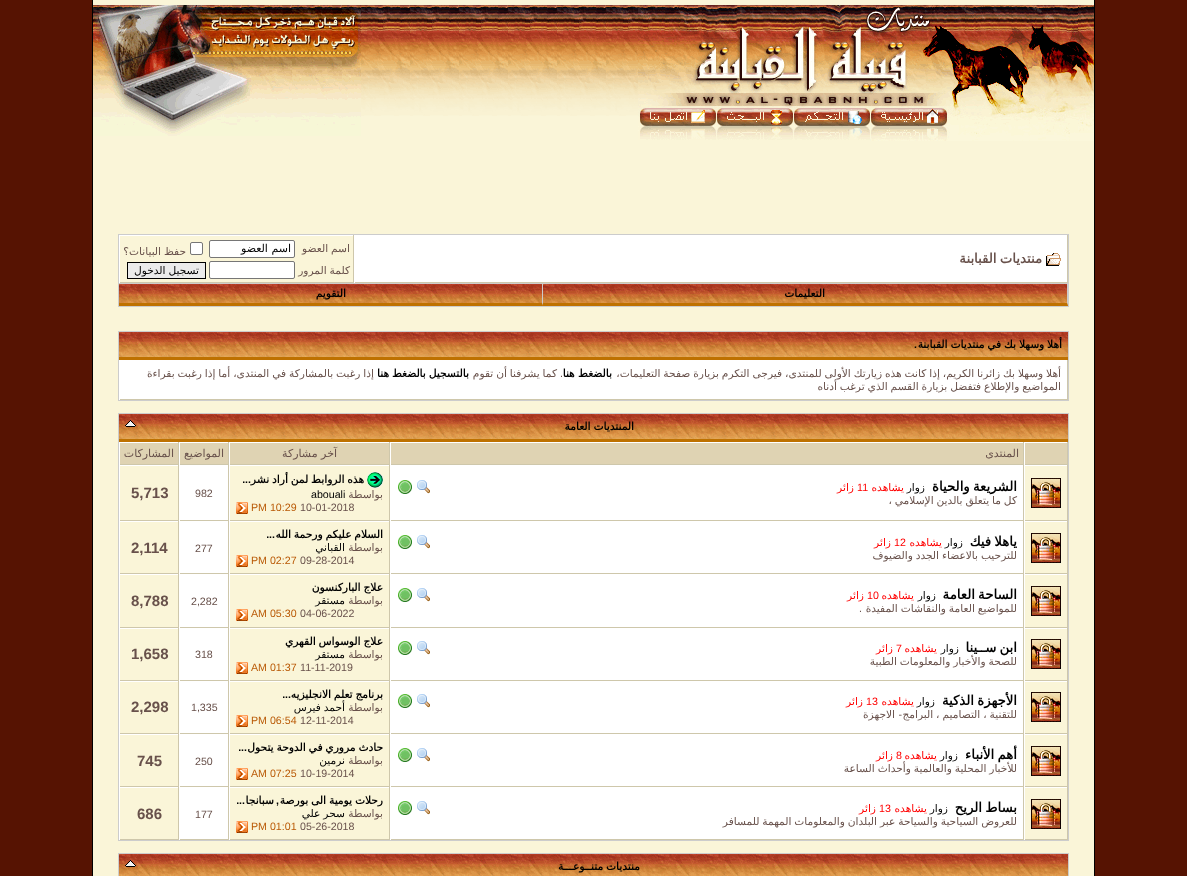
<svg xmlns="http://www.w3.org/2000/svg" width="1187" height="876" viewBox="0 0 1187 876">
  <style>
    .t1 { font: bold 13.25px DejaVu Sans; direction: rtl; fill: #68514b; }
    .t2 { font: 10.65px DejaVu Sans; direction: rtl; fill: #68514b; }
    .t3 { font: 11px DejaVu Sans; direction: rtl; fill: #000; }
    .t4 { font: 10.65px DejaVu Sans; direction: rtl; fill: #000; }
    .t5 { font: bold 10.65px DejaVu Sans; direction: rtl; fill: #000; }
    .t6 { font: bold 10.65px Liberation Sans; direction: rtl; fill: #000; }
    .t7 { font: 10.65px Liberation Sans; direction: rtl; fill: #68514b; }
    .t8 { font: 11px DejaVu Sans; direction: rtl; fill: #68514b; }
    .t9 { font: 10.65px Liberation Sans; fill: #000; }
    .t10 { font: 10.65px Liberation Sans; fill: #68514b; }
    .t11 { font: 10.65px Liberation Sans; fill: #b95905; }
    .t12 { font: bold 13.25px DejaVu Sans; direction: rtl; fill: #000; }
    .t13 { font: 10.65px DejaVu Sans; direction: rtl; fill: #f00; }
    .t14 { font: 10.65px Liberation Sans; fill: #f00; }
    .t15 { font: bold 15px Liberation Sans; fill: #68514b; }
  </style>
  <rect width="100%" height="100%" fill="#561302"/>
  <rect x="93" y="0" width="1001" height="876" fill="#faf5d8"/>
  <rect x="92" y="0" width="1" height="876" fill="#000"/>
  <rect x="1094" y="0" width="1" height="876" fill="#000"/>
  <image x="870" y="5" width="224" height="136" href="images/1.png"/>
  <image x="638" y="5" width="232" height="135" href="images/2.png"/>
  <image x="361" y="5" width="277" height="111" href="images/3.png"/>
  <image x="93" y="5" width="268" height="131" href="images/4.png"/>
  <rect x="118.5" y="234.5" width="950" height="49" fill="none" stroke="#ccc"/>
  <rect x="355" y="235" width="712" height="47" fill="#fff"/>
  <rect x="1067" y="235" width="1" height="48" fill="#cec7ab"/>
  <rect x="354" y="282" width="714" height="1" fill="#cec7ab"/>
  <rect x="354" y="235" width="1" height="48" fill="#fff"/>
  <image x="1046" y="253" width="15" height="13" href="images/5.png"/>
  <text x="1042" y="263" word-spacing="-1" class="t1">منتديات القبابنة</text>
  <rect x="119" y="235" width="235" height="1" fill="#fff"/>
  <rect x="353" y="235" width="1" height="48" fill="#cec7ab"/>
  <rect x="119" y="282" width="235" height="1" fill="#cec7ab"/>
  <rect x="119" y="235" width="1" height="48" fill="#fff"/>
  <text x="350" y="252" word-spacing="-0.5" class="t2">اسم العضو</text>
  <rect x="209.5" y="240.5" width="85" height="17" rx="1.5" fill="#fff" stroke="#767676"/>
  <text x="291" y="252" class="t3">اسم العضو</text>
  <rect x="190.5" y="242.5" width="12" height="12" rx="1.5" fill="#fff" stroke="#767676"/>
  <text x="186" y="255" word-spacing="-0.5" class="t2">حفظ البيانات؟</text>
  <text x="350" y="274" word-spacing="-0.5" class="t2">كلمة المرور</text>
  <rect x="209.5" y="261.5" width="85" height="17" rx="1.5" fill="#fff" stroke="#767676"/>
  <rect x="127.5" y="262.5" width="78" height="16" fill="#ebebeb" stroke="#000"/>
  <text x="199" y="274" word-spacing="-0.5" class="t4">تسجيل الدخول</text>
  <rect x="1068" y="284" width="1" height="23" fill="#ccc"/>
  <rect x="118" y="306" width="951" height="1" fill="#ccc"/>
  <rect x="118" y="284" width="1" height="23" fill="#ccc"/>
  <image x="543" y="284" width="525" height="22" href="images/6.png"/>
  <path d="M1068 284V306L1067 303V284Z" fill="#ccc"/>
  <path d="M1068 306H543V303H1067Z" fill="#be7100"/>
  <text x="825" y="297" class="t5">التعليمات</text>
  <image x="119" y="284" width="424" height="22" href="images/7.png"/>
  <path d="M543 284V306L542 303V284Z" fill="#ccc"/>
  <path d="M543 306H119V303H542Z" fill="#be7100"/>
  <text x="346" y="297" class="t5">التقويم</text>
  <rect x="118.5" y="331.5" width="950" height="69" fill="none" stroke="#ccc"/>
  <image x="119" y="332" width="949" height="25" href="images/8.png"/>
  <rect x="119" y="357" width="949" height="3" fill="#be7100"/>
  <text x="1062" y="348" word-spacing="-0.5" class="t5">أهلا وسهلا بك في منتديات القبابنة</text>
  <text x="917" y="348" class="t6">.</text>
  <rect x="120" y="360" width="947" height="39" fill="#fff"/>
  <rect x="1067" y="360" width="1" height="40" fill="#cec7ab"/>
  <rect x="119" y="399" width="949" height="1" fill="#cec7ab"/>
  <rect x="119" y="360" width="1" height="40" fill="#fff"/>
  <text x="1061" y="377" word-spacing="-0.5" class="t2">أهلا وسهلا بك زائرنا الكريم، إذا كانت هذه زيارتك الأولى للمنتدى، فيرجى التكرم بزيارة صفحة التعليمات،</text>
  <text x="612" y="377" class="t5">بالضغط هنا</text>
  <text x="563" y="377" class="t7">.</text>
  <text x="557" y="377" word-spacing="-0.5" class="t2">كما يشرفنا أن تقوم</text>
  <text x="469" y="377" word-spacing="-0.5" class="t5">بالتسجيل بالضغط هنا</text>
  <text x="374" y="377" word-spacing="-0.5" class="t2">إذا رغبت بالمشاركة في المنتدى، أما إذا رغبت بقراءة</text>
  <text x="1061" y="390" word-spacing="-0.5" class="t2">المواضيع والإطلاع فتفضل بزيارة القسم الذي ترغب أدناه</text>
  <rect x="118.5" y="413.5" width="950" height="427" fill="none" stroke="#ccc"/>
  <image x="119" y="414" width="949" height="25" href="images/8.png"/>
  <rect x="119" y="439" width="949" height="3" fill="#be7100"/>
  <text x="634" y="430" word-spacing="-0.5" class="t5">المنتديات العامة</text>
  <image x="125" y="420" width="11" height="7" href="images/9.png"/>
  <rect x="1025" y="443" width="42" height="21" fill="#dfd3b3"/>
  <rect x="119" y="442" width="949" height="1" fill="#fff"/>
  <rect x="1067" y="442" width="1" height="23" fill="#cec7ab"/>
  <rect x="1024" y="464" width="44" height="1" fill="#cec7ab"/>
  <rect x="1024" y="442" width="1" height="23" fill="#fff"/>
  <rect x="391" y="443" width="632" height="21" fill="#dfd3b3"/>
  <rect x="1023" y="442" width="1" height="398" fill="#cec7ab"/>
  <rect x="390" y="464" width="634" height="1" fill="#cec7ab"/>
  <rect x="390" y="442" width="1" height="23" fill="#fff"/>
  <text x="1019" y="457" class="t8">المنتدى</text>
  <rect x="230" y="443" width="159" height="21" fill="#dfd3b3"/>
  <rect x="389" y="442" width="1" height="23" fill="#cec7ab"/>
  <rect x="229" y="464" width="161" height="1" fill="#cec7ab"/>
  <rect x="229" y="442" width="1" height="23" fill="#fff"/>
  <text x="337" y="457" class="t8">آخر مشاركة</text>
  <rect x="180" y="443" width="48" height="21" fill="#dfd3b3"/>
  <rect x="228" y="442" width="1" height="398" fill="#cec7ab"/>
  <rect x="179" y="464" width="50" height="1" fill="#cec7ab"/>
  <rect x="179" y="442" width="1" height="23" fill="#fff"/>
  <text x="224" y="457" class="t8">المواضيع</text>
  <rect x="120" y="443" width="58" height="21" fill="#dfd3b3"/>
  <rect x="178" y="442" width="1" height="23" fill="#cec7ab"/>
  <rect x="119" y="464" width="60" height="1" fill="#cec7ab"/>
  <rect x="119" y="442" width="1" height="23" fill="#fff"/>
  <text x="174" y="457" class="t8">المشاركات</text>
  <rect x="1024" y="465" width="44" height="1" fill="#fff"/>
  <rect x="1067" y="465" width="1" height="56" fill="#cec7ab"/>
  <rect x="390" y="520" width="678" height="1" fill="#cec7ab"/>
  <rect x="1024" y="465" width="1" height="56" fill="#fff"/>
  <image x="1031" y="478" width="30" height="30" href="images/10.png"/>
  <rect x="229" y="465" width="161" height="1" fill="#fff"/>
  <rect x="389" y="465" width="1" height="56" fill="#cec7ab"/>
  <rect x="179" y="520" width="211" height="1" fill="#cec7ab"/>
  <rect x="229" y="465" width="1" height="56" fill="#fff"/>
  <image x="367" y="472" width="16" height="16" href="images/11.png"/>
  <text x="364" y="483" word-spacing="-0.5" class="t5">هذه الروابط لمن أراد نشر</text>
  <text x="251" y="483" class="t6">...</text>
  <text x="383" y="498" class="t2">بواسطة</text>
  <text x="311" y="498" class="t9">abouali</text>
  <text x="300" y="511" class="t10">10-01-2018</text>
  <text x="251" y="511" class="t11">PM 10:29</text>
  <image x="236" y="502" width="12" height="12" href="images/12.png"/>
  <rect x="391" y="465" width="632" height="55" fill="#fff"/>
  <rect x="390" y="465" width="1" height="56" fill="#fff"/>
  <text x="1017" y="491" word-spacing="-1" class="t12">الشريعة والحياة</text>
  <text x="925" y="491" class="t4">زوار</text>
  <text x="904" y="491" class="t13">يشاهده</text>
  <text x="857" y="491" class="t14">11</text>
  <text x="854" y="491" class="t13">زائر</text>
  <text x="1017" y="504" word-spacing="-0.5" class="t2">كل ما يتعلق بالدين الإسلامي ،</text>
  <image x="417" y="480" width="13" height="14" href="images/13.png"/>
  <image x="398" y="480" width="14" height="14" href="images/14.png"/>
  <rect x="180" y="465" width="48" height="55" fill="#fff"/>
  <rect x="179" y="465" width="1" height="56" fill="#fff"/>
  <text x="195" y="497" class="t10">982</text>
  <rect x="119" y="465" width="60" height="1" fill="#fff"/>
  <rect x="178" y="465" width="1" height="56" fill="#cec7ab"/>
  <rect x="119" y="520" width="60" height="1" fill="#cec7ab"/>
  <rect x="119" y="465" width="1" height="56" fill="#fff"/>
  <text x="131" y="498" class="t15">5,713</text>
  <rect x="1024" y="521" width="44" height="1" fill="#fff"/>
  <rect x="1067" y="521" width="1" height="53" fill="#cec7ab"/>
  <rect x="390" y="573" width="678" height="1" fill="#cec7ab"/>
  <rect x="1024" y="521" width="1" height="53" fill="#fff"/>
  <image x="1031" y="533" width="30" height="30" href="images/10.png"/>
  <rect x="229" y="521" width="161" height="1" fill="#fff"/>
  <rect x="389" y="521" width="1" height="53" fill="#cec7ab"/>
  <rect x="179" y="573" width="211" height="1" fill="#cec7ab"/>
  <rect x="229" y="521" width="1" height="53" fill="#fff"/>
  <text x="383" y="538" word-spacing="-0.5" class="t5">السلام عليكم ورحمة الله</text>
  <text x="275" y="538" class="t6">...</text>
  <text x="383" y="551" class="t2">بواسطة</text>
  <text x="345" y="551" class="t4">القباني</text>
  <text x="300" y="564" class="t10">09-28-2014</text>
  <text x="251" y="564" class="t11">PM 02:27</text>
  <image x="236" y="555" width="12" height="12" href="images/12.png"/>
  <rect x="391" y="521" width="632" height="52" fill="#fff"/>
  <rect x="390" y="521" width="1" height="53" fill="#fff"/>
  <text x="1017" y="546" word-spacing="-1" class="t12">ياهلا فيك</text>
  <text x="963" y="546" class="t4">زوار</text>
  <text x="942" y="546" class="t13">يشاهده</text>
  <text x="894" y="546" class="t14">12</text>
  <text x="891" y="546" class="t13">زائر</text>
  <text x="1017" y="559" word-spacing="-0.5" class="t2">للترحيب بالاعضاء الجدد والضيوف</text>
  <image x="417" y="535" width="13" height="14" href="images/13.png"/>
  <image x="398" y="535" width="14" height="14" href="images/14.png"/>
  <rect x="180" y="521" width="48" height="52" fill="#fff"/>
  <rect x="179" y="521" width="1" height="53" fill="#fff"/>
  <text x="195" y="552" class="t10">277</text>
  <rect x="119" y="521" width="60" height="1" fill="#fff"/>
  <rect x="178" y="521" width="1" height="53" fill="#cec7ab"/>
  <rect x="119" y="573" width="60" height="1" fill="#cec7ab"/>
  <rect x="119" y="521" width="1" height="53" fill="#fff"/>
  <text x="131" y="553" class="t15">2,114</text>
  <rect x="1024" y="574" width="44" height="1" fill="#fff"/>
  <rect x="1067" y="574" width="1" height="54" fill="#cec7ab"/>
  <rect x="390" y="627" width="678" height="1" fill="#cec7ab"/>
  <rect x="1024" y="574" width="1" height="54" fill="#fff"/>
  <image x="1031" y="586" width="30" height="30" href="images/10.png"/>
  <rect x="229" y="574" width="161" height="1" fill="#fff"/>
  <rect x="389" y="574" width="1" height="54" fill="#cec7ab"/>
  <rect x="179" y="627" width="211" height="1" fill="#cec7ab"/>
  <rect x="229" y="574" width="1" height="54" fill="#fff"/>
  <text x="383" y="591" word-spacing="-0.5" class="t5">علاج الباركنسون</text>
  <text x="383" y="604" class="t2">بواسطة</text>
  <text x="345" y="604" class="t4">مستقر</text>
  <text x="300" y="617" class="t10">04-06-2022</text>
  <text x="251" y="617" class="t11">AM 05:30</text>
  <image x="236" y="609" width="12" height="12" href="images/12.png"/>
  <rect x="391" y="574" width="632" height="53" fill="#fff"/>
  <rect x="390" y="574" width="1" height="54" fill="#fff"/>
  <text x="1017" y="599" word-spacing="-1" class="t12">الساحة العامة</text>
  <text x="936" y="599" class="t4">زوار</text>
  <text x="914" y="599" class="t13">يشاهده</text>
  <text x="867" y="599" class="t14">10</text>
  <text x="864" y="599" class="t13">زائر</text>
  <text x="1017" y="612" word-spacing="-0.5" class="t2">للمواضيع العامة والنقاشات المفيدة</text>
  <text x="862" y="612" class="t7">.</text>
  <image x="417" y="588" width="13" height="14" href="images/13.png"/>
  <image x="398" y="588" width="14" height="14" href="images/14.png"/>
  <rect x="180" y="574" width="48" height="53" fill="#fff"/>
  <rect x="179" y="574" width="1" height="54" fill="#fff"/>
  <text x="191" y="605" class="t10">2,282</text>
  <rect x="119" y="574" width="60" height="1" fill="#fff"/>
  <rect x="178" y="574" width="1" height="54" fill="#cec7ab"/>
  <rect x="119" y="627" width="60" height="1" fill="#cec7ab"/>
  <rect x="119" y="574" width="1" height="54" fill="#fff"/>
  <text x="131" y="606" class="t15">8,788</text>
  <rect x="1024" y="628" width="44" height="1" fill="#fff"/>
  <rect x="1067" y="628" width="1" height="53" fill="#cec7ab"/>
  <rect x="390" y="680" width="678" height="1" fill="#cec7ab"/>
  <rect x="1024" y="628" width="1" height="53" fill="#fff"/>
  <image x="1031" y="639" width="30" height="30" href="images/10.png"/>
  <rect x="229" y="628" width="161" height="1" fill="#fff"/>
  <rect x="389" y="628" width="1" height="53" fill="#cec7ab"/>
  <rect x="179" y="680" width="211" height="1" fill="#cec7ab"/>
  <rect x="229" y="628" width="1" height="53" fill="#fff"/>
  <text x="383" y="645" word-spacing="-0.5" class="t5">علاج الوسواس القهري</text>
  <text x="383" y="658" class="t2">بواسطة</text>
  <text x="345" y="658" class="t4">مستقر</text>
  <text x="300" y="671" class="t10">11-11-2019</text>
  <text x="251" y="671" class="t11">AM 01:37</text>
  <image x="236" y="662" width="12" height="12" href="images/12.png"/>
  <rect x="391" y="628" width="632" height="52" fill="#fff"/>
  <rect x="390" y="628" width="1" height="53" fill="#fff"/>
  <text x="1017" y="652" word-spacing="-1" class="t12">ابن ســينا</text>
  <text x="959" y="652" class="t4">زوار</text>
  <text x="937" y="652" class="t13">يشاهده</text>
  <text x="896" y="652" class="t14">7</text>
  <text x="893" y="652" class="t13">زائر</text>
  <text x="1017" y="665" word-spacing="-0.5" class="t2">للصحة والأخبار والمعلومات الطبية</text>
  <image x="417" y="641" width="13" height="14" href="images/13.png"/>
  <image x="398" y="641" width="14" height="14" href="images/14.png"/>
  <rect x="180" y="628" width="48" height="52" fill="#fff"/>
  <rect x="179" y="628" width="1" height="53" fill="#fff"/>
  <text x="195" y="658" class="t10">318</text>
  <rect x="119" y="628" width="60" height="1" fill="#fff"/>
  <rect x="178" y="628" width="1" height="53" fill="#cec7ab"/>
  <rect x="119" y="680" width="60" height="1" fill="#cec7ab"/>
  <rect x="119" y="628" width="1" height="53" fill="#fff"/>
  <text x="131" y="659" class="t15">1,658</text>
  <rect x="1024" y="681" width="44" height="1" fill="#fff"/>
  <rect x="1067" y="681" width="1" height="53" fill="#cec7ab"/>
  <rect x="390" y="733" width="678" height="1" fill="#cec7ab"/>
  <rect x="1024" y="681" width="1" height="53" fill="#fff"/>
  <image x="1031" y="692" width="30" height="30" href="images/10.png"/>
  <rect x="229" y="681" width="161" height="1" fill="#fff"/>
  <rect x="389" y="681" width="1" height="53" fill="#cec7ab"/>
  <rect x="179" y="733" width="211" height="1" fill="#cec7ab"/>
  <rect x="229" y="681" width="1" height="53" fill="#fff"/>
  <text x="383" y="698" word-spacing="-0.5" class="t5">برنامج تعلم الانجليزيه</text>
  <text x="291" y="698" class="t6">...</text>
  <text x="383" y="711" class="t2">بواسطة</text>
  <text x="345" y="711" word-spacing="-0.5" class="t4">أحمد فيرس</text>
  <text x="300" y="724" class="t10">12-11-2014</text>
  <text x="251" y="724" class="t11">PM 06:54</text>
  <image x="236" y="715" width="12" height="12" href="images/12.png"/>
  <rect x="391" y="681" width="632" height="52" fill="#fff"/>
  <rect x="390" y="681" width="1" height="53" fill="#fff"/>
  <text x="1017" y="705" word-spacing="-1" class="t12">الأجهزة الذكية</text>
  <text x="935" y="705" class="t4">زوار</text>
  <text x="914" y="705" class="t13">يشاهده</text>
  <text x="866" y="705" class="t14">13</text>
  <text x="863" y="705" class="t13">زائر</text>
  <text x="1017" y="718" word-spacing="-0.5" class="t2">للتقنية ، التصاميم ، البرامج</text>
  <text x="902" y="718" class="t7">-</text>
  <text x="895" y="718" class="t2">الاجهزة</text>
  <image x="417" y="694" width="13" height="14" href="images/13.png"/>
  <image x="398" y="694" width="14" height="14" href="images/14.png"/>
  <rect x="180" y="681" width="48" height="52" fill="#fff"/>
  <rect x="179" y="681" width="1" height="53" fill="#fff"/>
  <text x="191" y="711" class="t10">1,335</text>
  <rect x="119" y="681" width="60" height="1" fill="#fff"/>
  <rect x="178" y="681" width="1" height="53" fill="#cec7ab"/>
  <rect x="119" y="733" width="60" height="1" fill="#cec7ab"/>
  <rect x="119" y="681" width="1" height="53" fill="#fff"/>
  <text x="131" y="712" class="t15">2,298</text>
  <rect x="1024" y="734" width="44" height="1" fill="#fff"/>
  <rect x="1067" y="734" width="1" height="53" fill="#cec7ab"/>
  <rect x="390" y="786" width="678" height="1" fill="#cec7ab"/>
  <rect x="1024" y="734" width="1" height="53" fill="#fff"/>
  <image x="1031" y="746" width="30" height="30" href="images/10.png"/>
  <rect x="229" y="734" width="161" height="1" fill="#fff"/>
  <rect x="389" y="734" width="1" height="53" fill="#cec7ab"/>
  <rect x="179" y="786" width="211" height="1" fill="#cec7ab"/>
  <rect x="229" y="734" width="1" height="53" fill="#fff"/>
  <text x="383" y="751" word-spacing="-0.5" class="t5">حادث مروري في الدوحة يتحول</text>
  <text x="247" y="751" class="t6">...</text>
  <text x="383" y="764" class="t2">بواسطة</text>
  <text x="345" y="764" class="t4">نرمين</text>
  <text x="300" y="777" class="t10">10-19-2014</text>
  <text x="251" y="777" class="t11">AM 07:25</text>
  <image x="236" y="768" width="12" height="12" href="images/12.png"/>
  <rect x="391" y="734" width="632" height="52" fill="#fff"/>
  <rect x="390" y="734" width="1" height="53" fill="#fff"/>
  <text x="1017" y="759" word-spacing="-1" class="t12">أهم الأنباء</text>
  <text x="958" y="759" class="t4">زوار</text>
  <text x="937" y="759" class="t13">يشاهده</text>
  <text x="896" y="759" class="t14">8</text>
  <text x="893" y="759" class="t13">زائر</text>
  <text x="1017" y="772" word-spacing="-0.5" class="t2">للأخبار المحلية والعالمية وأحداث الساعة</text>
  <image x="417" y="748" width="13" height="14" href="images/13.png"/>
  <image x="398" y="748" width="14" height="14" href="images/14.png"/>
  <rect x="180" y="734" width="48" height="52" fill="#fff"/>
  <rect x="179" y="734" width="1" height="53" fill="#fff"/>
  <text x="195" y="765" class="t10">250</text>
  <rect x="119" y="734" width="60" height="1" fill="#fff"/>
  <rect x="178" y="734" width="1" height="53" fill="#cec7ab"/>
  <rect x="119" y="786" width="60" height="1" fill="#cec7ab"/>
  <rect x="119" y="734" width="1" height="53" fill="#fff"/>
  <text x="137" y="766" class="t15">745</text>
  <rect x="1024" y="787" width="44" height="1" fill="#fff"/>
  <rect x="1067" y="787" width="1" height="53" fill="#cec7ab"/>
  <rect x="390" y="839" width="678" height="1" fill="#cec7ab"/>
  <rect x="1024" y="787" width="1" height="53" fill="#fff"/>
  <image x="1031" y="799" width="30" height="30" href="images/10.png"/>
  <rect x="229" y="787" width="161" height="1" fill="#fff"/>
  <rect x="389" y="787" width="1" height="53" fill="#cec7ab"/>
  <rect x="179" y="839" width="211" height="1" fill="#cec7ab"/>
  <rect x="229" y="787" width="1" height="53" fill="#fff"/>
  <text x="383" y="804" word-spacing="-0.5" class="t5">رحلات يومية الى بورصة</text>
  <text x="279" y="804" class="t6">,</text>
  <text x="274" y="804" class="t5">سبانجا</text>
  <text x="245" y="804" class="t6">...</text>
  <text x="383" y="817" class="t2">بواسطة</text>
  <text x="345" y="817" word-spacing="-0.5" class="t4">سحر علي</text>
  <text x="300" y="830" class="t10">05-26-2018</text>
  <text x="251" y="830" class="t11">PM 01:01</text>
  <image x="236" y="821" width="12" height="12" href="images/12.png"/>
  <rect x="391" y="787" width="632" height="52" fill="#fff"/>
  <rect x="390" y="787" width="1" height="53" fill="#fff"/>
  <text x="1017" y="812" word-spacing="-1" class="t12">بساط الريح</text>
  <text x="948" y="812" class="t4">زوار</text>
  <text x="927" y="812" class="t13">يشاهده</text>
  <text x="879" y="812" class="t14">13</text>
  <text x="876" y="812" class="t13">زائر</text>
  <text x="1017" y="825" word-spacing="-0.5" class="t2">للعروض السياحية والسياحة عبر البلدان والمعلومات المهمة للمسافر</text>
  <image x="417" y="801" width="13" height="14" href="images/13.png"/>
  <image x="398" y="801" width="14" height="14" href="images/14.png"/>
  <rect x="180" y="787" width="48" height="52" fill="#fff"/>
  <rect x="179" y="787" width="1" height="53" fill="#fff"/>
  <text x="195" y="818" class="t10">177</text>
  <rect x="119" y="787" width="60" height="1" fill="#fff"/>
  <rect x="178" y="787" width="1" height="53" fill="#cec7ab"/>
  <rect x="119" y="839" width="60" height="1" fill="#cec7ab"/>
  <rect x="119" y="787" width="1" height="53" fill="#fff"/>
  <text x="137" y="819" class="t15">686</text>
  <rect x="118.5" y="853.5" width="950" height="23" fill="none" stroke="#ccc"/>
  <image x="119" y="854" width="949" height="22" href="images/15.png"/>
  <text x="640" y="870" word-spacing="-0.5" class="t5">منتديات متنــوعـــة</text>
  <image x="125" y="860" width="11" height="7" href="images/9.png"/>
</svg>
